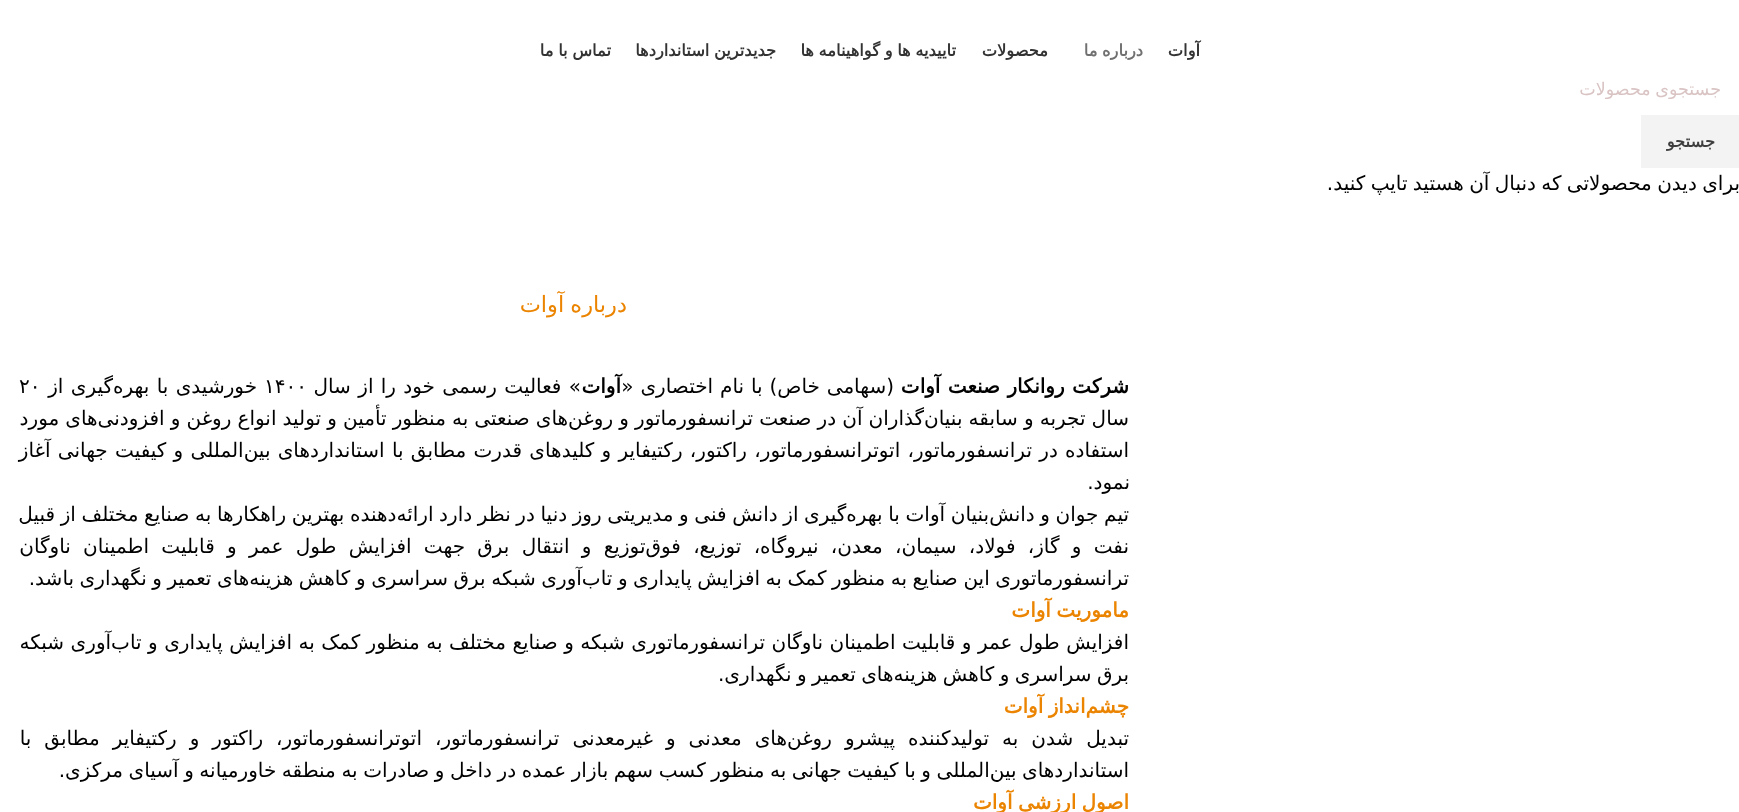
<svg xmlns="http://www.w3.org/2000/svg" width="1739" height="812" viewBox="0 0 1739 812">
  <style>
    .t1 { font: 17.5px DejaVu Sans; direction: rtl; fill: #d9c3c3; }
    .t2 { font: bold 16.25px DejaVu Sans; direction: rtl; fill: #3e3e3e; }
    .t3 { font: 20px DejaVu Sans; direction: rtl; fill: #000; }
    .t4 { font: bold 16.25px DejaVu Sans; direction: rtl; fill: #333; }
    .t5 { font: bold 16.25px DejaVu Sans; direction: rtl; fill: #707070; }
    .t6 { font: 22.5px DejaVu Sans; direction: rtl; fill: #eb8401; }
    .t7 { font: bold 20px DejaVu Sans; direction: rtl; fill: #000; }
    .t8 { font: 20px DejaVu Sans; fill: #000; }
    .t9 { font: bold 20px DejaVu Sans; direction: rtl; fill: #eb8401; }
  </style>
  <defs>
    <clipPath id="clip1"><rect x="19" y="79" width="1702" height="20"/></clipPath>
  </defs>
  <rect width="100%" height="100%" fill="#fff"/>
  <g clip-path="url(#clip1)">
    <text x="1721" y="95" word-spacing="-1" class="t1">جستجوی محصولات</text>
  </g>
  <rect x="1641" y="115" width="98" height="53" fill="#f3f3f3"/>
  <text x="1715" y="147" class="t2">جستجو</text>
  <text x="1740" y="190" word-spacing="-1" class="t3">برای دیدن محصولاتی که دنبال آن هستید تایپ کنید.</text>
  <text x="1200" y="56" class="t4">آوات</text>
  <text x="1143" y="56" word-spacing="-0.5" class="t5">درباره ما</text>
  <text x="1048" y="56" class="t4">محصولات</text>
  <text x="956" y="56" word-spacing="-0.5" class="t4">تاییدیه ها و گواهینامه ها</text>
  <text x="776" y="56" word-spacing="-0.5" class="t4">جدیدترین استانداردها</text>
  <text x="611" y="56" word-spacing="-0.5" class="t4">تماس با ما</text>
  <text x="627" y="312" word-spacing="-1" class="t6">درباره آوات</text>
  <text x="1129" y="393" word-spacing="1" class="t7">شرکت روانکار صنعت آوات</text>
  <text x="894" y="393" word-spacing="0.5" class="t3">(سهامی خاص) با نام اختصاری «</text>
  <text x="621" y="393" class="t7">آوات</text>
  <text x="581" y="393" word-spacing="1" class="t3">» فعالیت رسمی خود را از سال</text>
  <text x="264" y="393" class="t8">۱۴۰۰</text>
  <text x="257" y="393" word-spacing="1" class="t3">خورشیدی با بهره‌گیری از</text>
  <text x="19" y="393" class="t8">۲۰</text>
  <text x="1129" y="425" word-spacing="-0.25" class="t3">سال تجربه و سابقه بنیان‌گذاران آن در صنعت ترانسفورماتور و روغن‌های صنعتی به منظور تأمین و تولید انواع روغن و افزودنی‌های مورد</text>
  <text x="1129" y="457" word-spacing="0.9" class="t3">استفاده در ترانسفورماتور، اتوترانسفورماتور، راکتور، رکتیفایر و کلیدهای قدرت مطابق با استانداردهای بین‌المللی و کیفیت جهانی آغاز</text>
  <text x="1130" y="489" class="t3">نمود.</text>
  <text x="1129" y="521" word-spacing="-0.75" class="t3">تیم جوان و دانش‌بنیان آوات با بهره‌گیری از دانش فنی و مدیریتی روز دنیا در نظر دارد ارائه‌دهنده بهترین راهکارها به صنایع مختلف از قبیل</text>
  <text x="1129" y="553" word-spacing="5.9" class="t3">نفت و گاز، فولاد، سیمان، معدن، نیروگاه، توزیع، فوق‌توزیع و انتقال برق جهت افزایش طول عمر و قابلیت اطمینان ناوگان</text>
  <text x="1129" y="585" word-spacing="-0.8" class="t3">ترانسفورماتوری این صنایع به منظور کمک به افزایش پایداری و تاب‌آوری شبکه برق سراسری و کاهش هزینه‌های تعمیر و نگهداری باشد.</text>
  <text x="1129" y="617" word-spacing="-1" class="t9">ماموریت آوات</text>
  <text x="1129" y="649" word-spacing="0.1" class="t3">افزایش طول عمر و قابلیت اطمینان ناوگان ترانسفورماتوری شبکه و صنایع مختلف به منظور کمک به افزایش پایداری و تاب‌آوری شبکه</text>
  <text x="1129" y="681" word-spacing="-1" class="t3">برق سراسری و کاهش هزینه‌های تعمیر و نگهداری.</text>
  <text x="1129" y="713" word-spacing="-1" class="t9">چشم‌انداز آوات</text>
  <text x="1129" y="745" word-spacing="6.6" class="t3">تبدیل شدن به تولیدکننده پیشرو روغن‌های معدنی و غیرمعدنی ترانسفورماتور، اتوترانسفورماتور، راکتور و رکتیفایر مطابق با</text>
  <text x="1129" y="777" word-spacing="-0.8" class="t3">استانداردهای بین‌المللی و با کیفیت جهانی به منظور کسب سهم بازار عمده در داخل و صادرات به منطقه خاورمیانه و آسیای مرکزی.</text>
  <text x="1129" y="809" word-spacing="-1" class="t9">اصول ارزشی آوات</text>
</svg>
